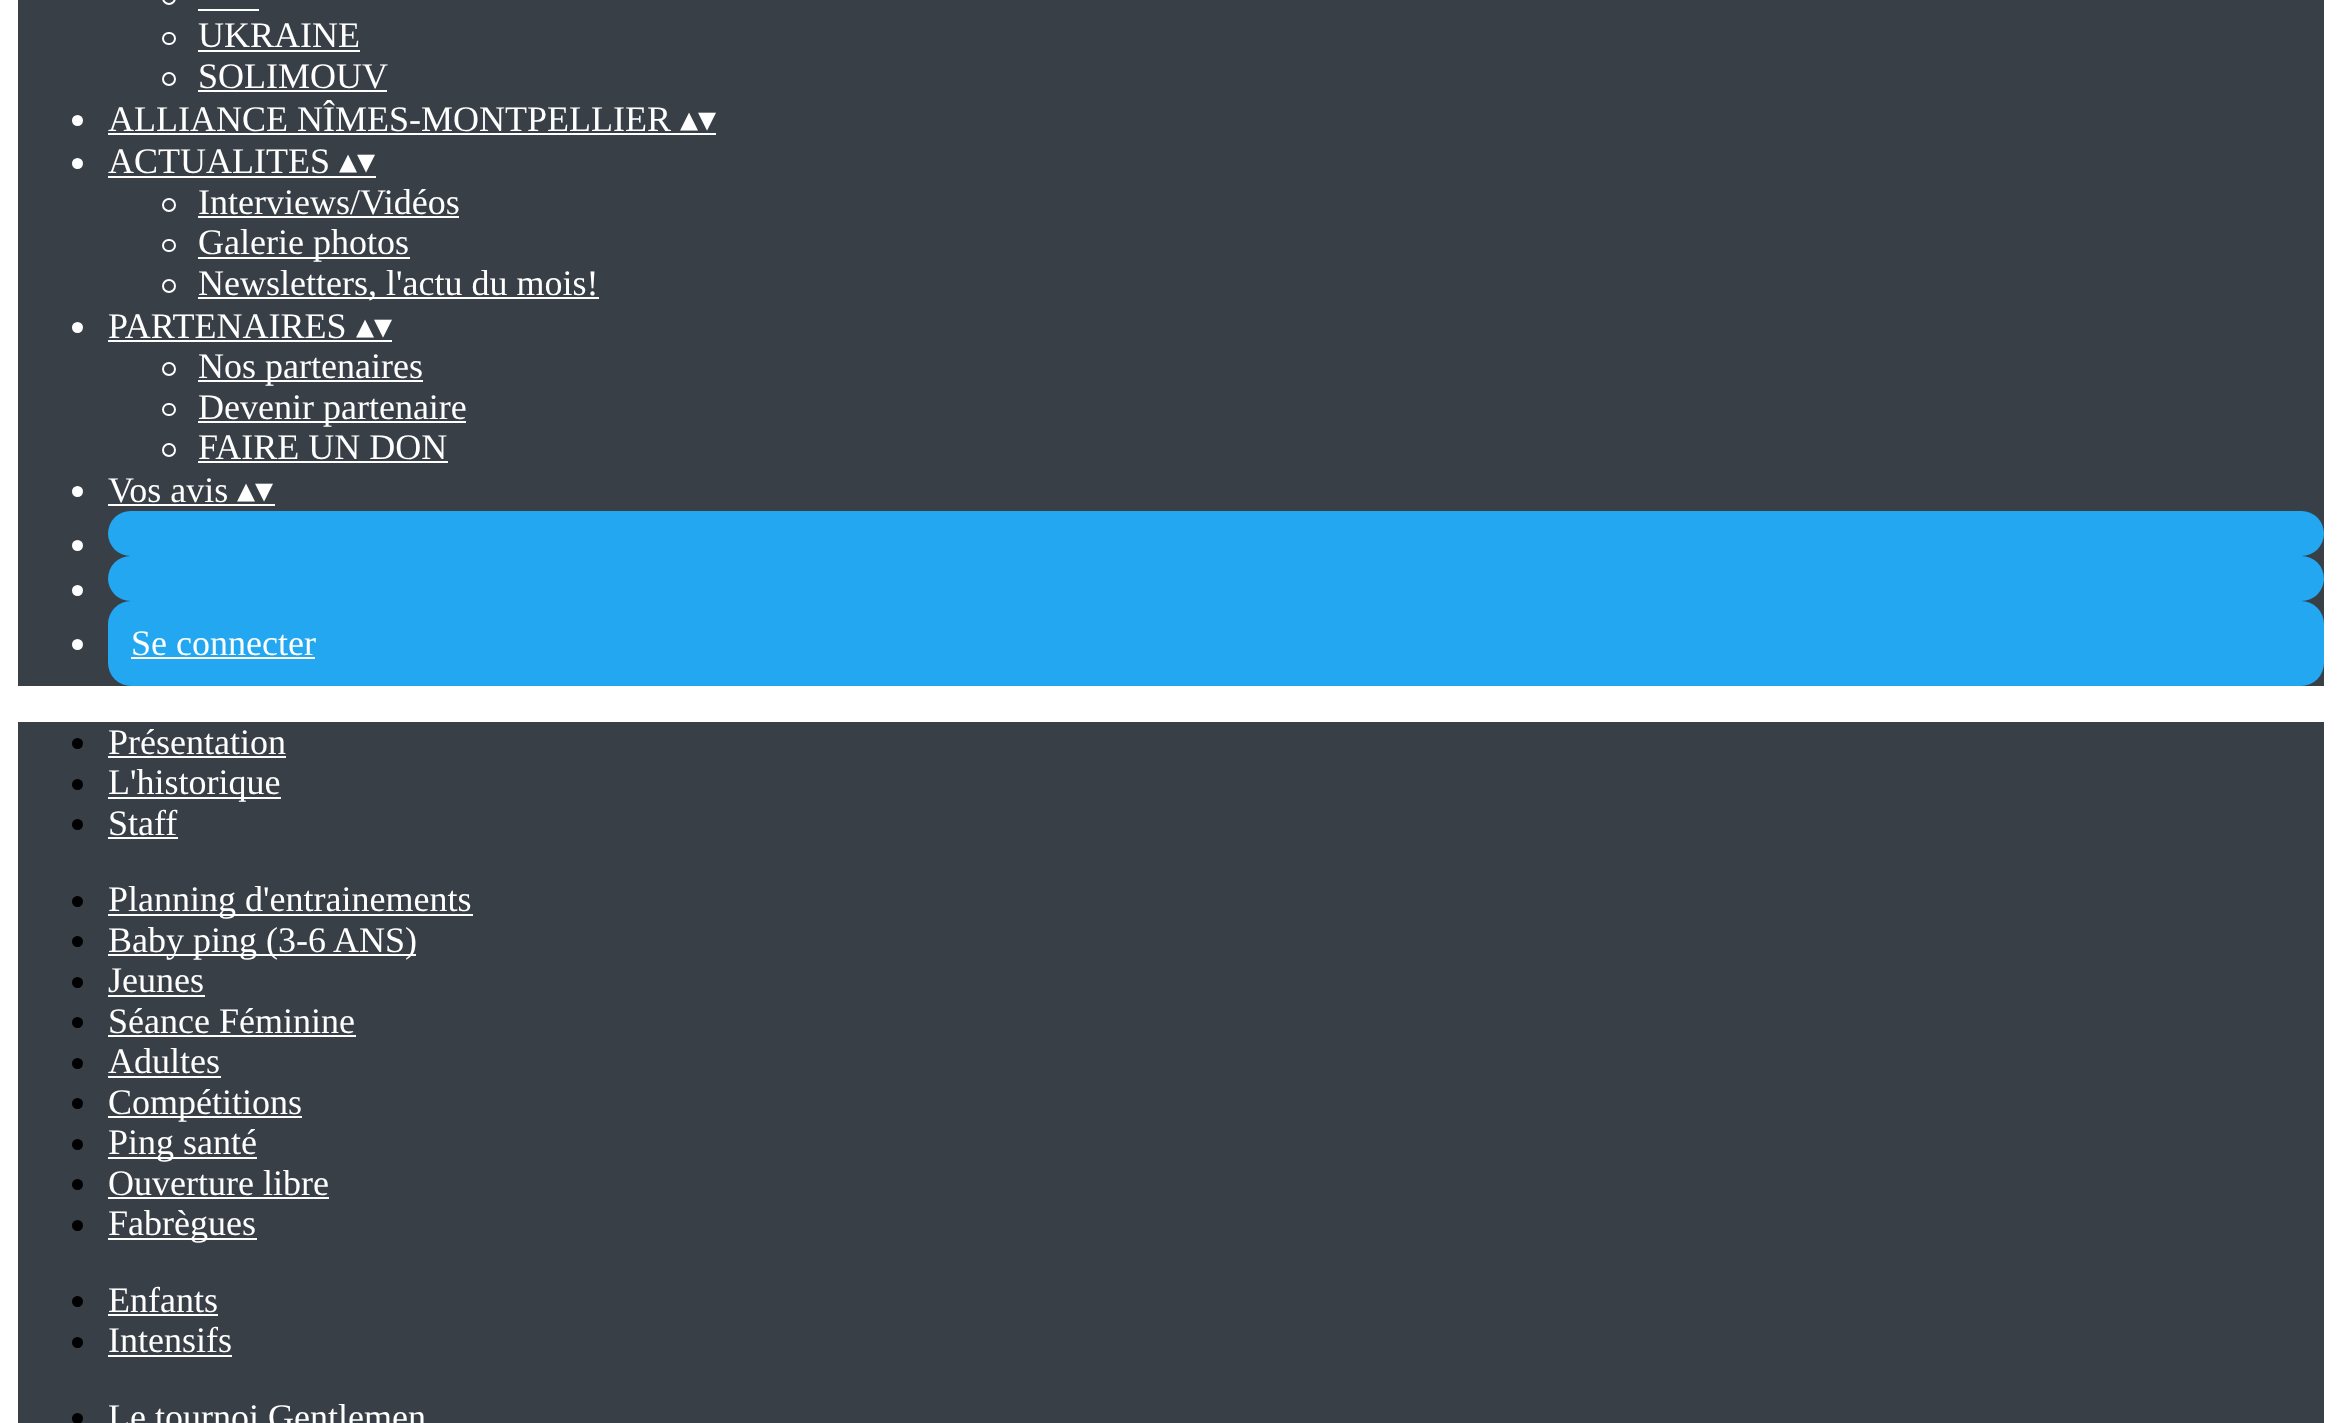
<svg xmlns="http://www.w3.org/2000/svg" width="2341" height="1423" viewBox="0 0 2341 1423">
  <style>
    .t1 { font: 36px Liberation Serif; fill: #fff; }
    .t2 { font: 36px DejaVu Sans; fill: #fff; }
  </style>
  <rect width="100%" height="100%" fill="#fff"/>
  <rect x="18" y="0" width="2306" height="686" fill="#383f47"/>
  <circle cx="169" cy="-2" r="6" fill="none" stroke="#fff" stroke-width="2"/>
  <rect x="198" y="9" width="61" height="2" fill="#fff"/>
  <rect x="163" y="33" width="12" height="11" rx="5.5" fill="none" stroke="#fff" stroke-width="2"/>
  <text x="198" y="47" class="t1">UKRAINE</text>
  <rect x="198" y="50" width="162" height="2" fill="#fff"/>
  <circle cx="169" cy="79" r="6" fill="none" stroke="#fff" stroke-width="2"/>
  <text x="198" y="88" class="t1">SOLIMOUV</text>
  <rect x="198" y="90" width="189" height="2" fill="#fff"/>
  <circle cx="77.5" cy="120.5" r="5.5" fill="#fff"/>
  <text x="108" y="131" class="t1">ALLIANCE NÎMES-MONTPELLIER</text>
  <rect x="108" y="133" width="608" height="2" fill="#fff"/>
  <text x="680" y="131" class="t2">▴▾</text>
  <circle cx="77.5" cy="163.5" r="5.5" fill="#fff"/>
  <text x="108" y="173" class="t1">ACTUALITES</text>
  <rect x="108" y="176" width="268" height="2" fill="#fff"/>
  <text x="339" y="173" class="t2">▴▾</text>
  <circle cx="169" cy="205" r="6" fill="none" stroke="#fff" stroke-width="2"/>
  <text x="198" y="214" class="t1">Interviews/Vidéos</text>
  <rect x="198" y="216" width="261" height="2" fill="#fff"/>
  <rect x="163" y="240" width="12" height="11" rx="5.5" fill="none" stroke="#fff" stroke-width="2"/>
  <rect x="198" y="257" width="212" height="2" fill="#fff"/>
  <text x="198" y="254" class="t1">Galerie photos</text>
  <circle cx="169" cy="286" r="6" fill="none" stroke="#fff" stroke-width="2"/>
  <rect x="198" y="297" width="401" height="2" fill="#fff"/>
  <text x="198" y="295" class="t1">Newsletters, l'actu du mois!</text>
  <circle cx="77.5" cy="327.5" r="5.5" fill="#fff"/>
  <text x="108" y="338" class="t1">PARTENAIRES</text>
  <rect x="108" y="340" width="284" height="2" fill="#fff"/>
  <text x="356" y="338" class="t2">▴▾</text>
  <circle cx="169" cy="369" r="6" fill="none" stroke="#fff" stroke-width="2"/>
  <rect x="198" y="380" width="225" height="2" fill="#fff"/>
  <text x="198" y="378" class="t1">Nos partenaires</text>
  <rect x="163" y="404" width="12" height="11" rx="5.5" fill="none" stroke="#fff" stroke-width="2"/>
  <rect x="198" y="421" width="268" height="2" fill="#fff"/>
  <text x="198" y="419" class="t1">Devenir partenaire</text>
  <circle cx="169" cy="450" r="6" fill="none" stroke="#fff" stroke-width="2"/>
  <text x="198" y="459" class="t1">FAIRE UN DON</text>
  <rect x="198" y="461" width="250" height="2" fill="#fff"/>
  <circle cx="77.5" cy="491.5" r="5.5" fill="#fff"/>
  <text x="108" y="502" class="t1">Vos avis</text>
  <rect x="108" y="504" width="167" height="2" fill="#fff"/>
  <text x="237" y="502" class="t2">▴▾</text>
  <circle cx="77.5" cy="545.5" r="5.5" fill="#fff"/>
  <rect x="108" y="511" width="2216" height="45" rx="22.5" fill="#22a7f0"/>
  <circle cx="77.5" cy="590.5" r="5.5" fill="#fff"/>
  <rect x="108" y="556" width="2216" height="45" rx="22.5" fill="#22a7f0"/>
  <circle cx="77.5" cy="644.5" r="5.5" fill="#fff"/>
  <rect x="108" y="601" width="2216" height="85" rx="23" fill="#22a7f0"/>
  <text x="131" y="655" class="t1">Se connecter</text>
  <rect x="131" y="657" width="184" height="2" fill="#fff"/>
  <rect x="18" y="722" width="2306" height="701" fill="#383f47"/>
  <circle cx="77.5" cy="743.5" r="5.5" fill="#000"/>
  <text x="108" y="754" class="t1">Présentation</text>
  <rect x="108" y="756" width="178" height="2" fill="#fff"/>
  <circle cx="77.5" cy="784.5" r="5.5" fill="#000"/>
  <rect x="108" y="797" width="173" height="2" fill="#fff"/>
  <text x="108" y="794" class="t1">L'historique</text>
  <circle cx="77.5" cy="824.5" r="5.5" fill="#000"/>
  <text x="108" y="835" class="t1">Staff</text>
  <rect x="108" y="837" width="70" height="2" fill="#fff"/>
  <circle cx="77.5" cy="901.5" r="5.5" fill="#000"/>
  <rect x="108" y="914" width="365" height="2" fill="#fff"/>
  <text x="108" y="911" class="t1">Planning d'entrainements</text>
  <circle cx="77.5" cy="941.5" r="5.5" fill="#000"/>
  <rect x="108" y="954" width="308" height="2" fill="#fff"/>
  <text x="108" y="952" class="t1">Baby ping (3-6 ANS)</text>
  <circle cx="77.5" cy="982.5" r="5.5" fill="#000"/>
  <text x="108" y="992" class="t1">Jeunes</text>
  <rect x="108" y="995" width="97" height="2" fill="#fff"/>
  <circle cx="77.5" cy="1022.5" r="5.5" fill="#000"/>
  <text x="108" y="1033" class="t1">Séance Féminine</text>
  <rect x="108" y="1035" width="248" height="2" fill="#fff"/>
  <circle cx="77.5" cy="1063.5" r="5.5" fill="#000"/>
  <text x="108" y="1073" class="t1">Adultes</text>
  <rect x="108" y="1076" width="113" height="2" fill="#fff"/>
  <circle cx="77.5" cy="1103.5" r="5.5" fill="#000"/>
  <rect x="108" y="1116" width="194" height="2" fill="#fff"/>
  <text x="108" y="1114" class="t1">Compétitions</text>
  <circle cx="77.5" cy="1144.5" r="5.5" fill="#000"/>
  <rect x="108" y="1157" width="149" height="2" fill="#fff"/>
  <text x="108" y="1154" class="t1">Ping santé</text>
  <circle cx="77.5" cy="1184.5" r="5.5" fill="#000"/>
  <text x="108" y="1195" class="t1">Ouverture libre</text>
  <rect x="108" y="1197" width="221" height="2" fill="#fff"/>
  <circle cx="77.5" cy="1225.5" r="5.5" fill="#000"/>
  <rect x="108" y="1238" width="149" height="2" fill="#fff"/>
  <text x="108" y="1235" class="t1">Fabrègues</text>
  <circle cx="77.5" cy="1301.5" r="5.5" fill="#000"/>
  <text x="108" y="1312" class="t1">Enfants</text>
  <rect x="108" y="1314" width="110" height="2" fill="#fff"/>
  <circle cx="77.5" cy="1342.5" r="5.5" fill="#000"/>
  <text x="108" y="1352" class="t1">Intensifs</text>
  <rect x="108" y="1355" width="124" height="2" fill="#fff"/>
  <circle cx="77.5" cy="1418.5" r="5.5" fill="#000"/>
  <text x="108" y="1429" class="t1">Le tournoi Gentlemen</text>
</svg>
